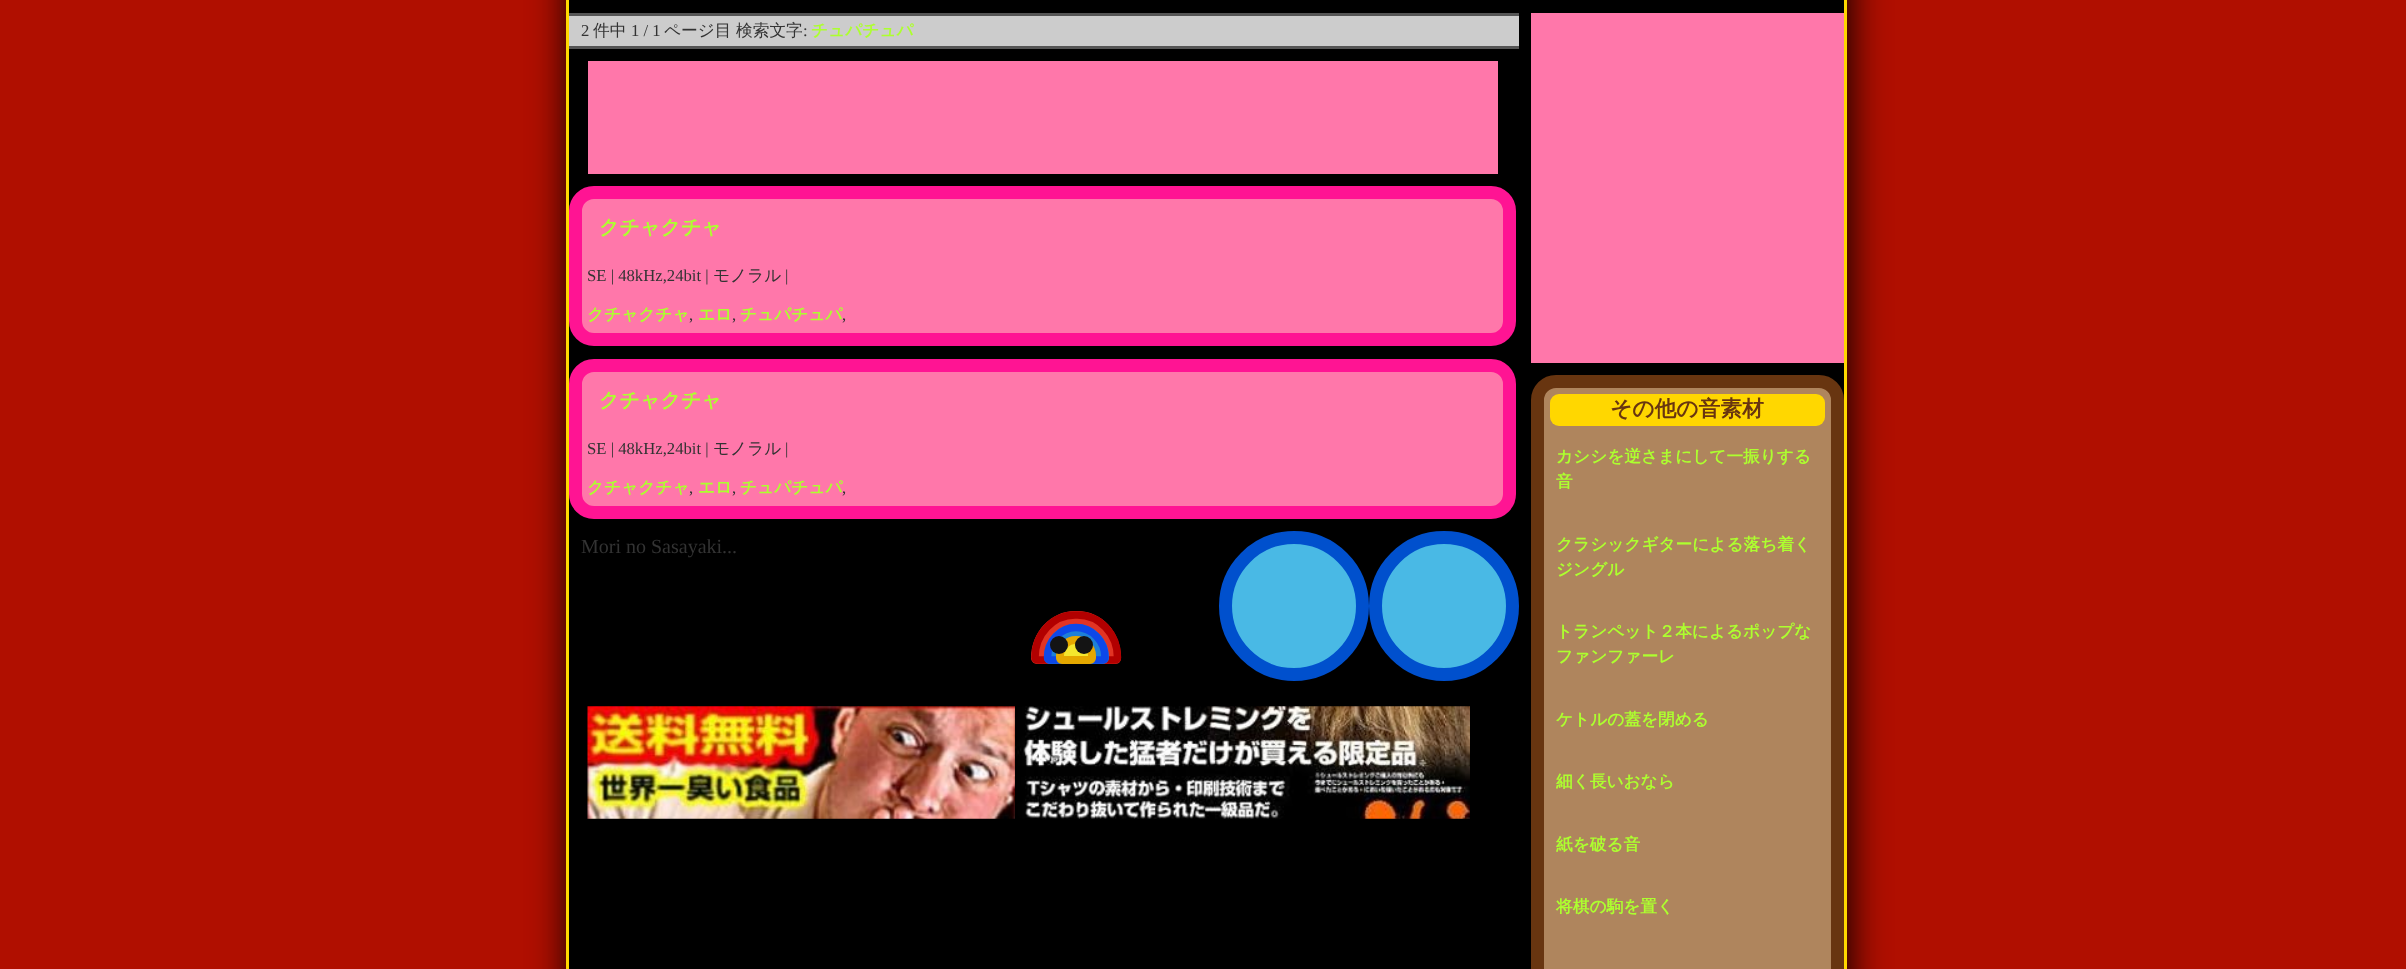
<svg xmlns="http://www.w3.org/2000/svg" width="2406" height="969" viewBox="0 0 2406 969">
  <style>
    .t1 { font: 16.7px Liberation Serif; fill: #333; }
    .t2 { font: 500 16.7px WenQuanYi Zen Hei; fill: #333; }
    .t3 { font: bold 16.7px WenQuanYi Zen Hei; fill: #adff2f; }
    .t4 { font: bold 20px WenQuanYi Zen Hei; fill: #adff2f; }
    .t5 { font: 20px Liberation Serif; fill: #333; }
    .t6 { font: bold 21.75px WenQuanYi Zen Hei; fill: #683510; }
  </style>
  <rect width="100%" height="100%" fill="#b00f00"/>
  <rect x="569" y="-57" width="1280" height="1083" fill="#000" filter="blur(19px)"/>
  <rect x="569" y="0" width="1275" height="969" fill="#000"/>
  <rect x="1844" y="0" width="3" height="969" fill="#ffd700"/>
  <rect x="566" y="0" width="3" height="969" fill="#ffd700"/>
  <rect x="569" y="16" width="950" height="30" fill="#ccc"/>
  <rect x="569" y="13" width="950" height="3" fill="#555"/>
  <rect x="569" y="46" width="950" height="3" fill="#555"/>
  <text x="581" y="36" class="t1">2</text>
  <text x="593" y="36" class="t2">件中</text>
  <text x="631" y="36" class="t1">1 / 1</text>
  <text x="664" y="36" class="t2">ページ目</text>
  <text x="736" y="36" class="t2">検索文字</text>
  <text x="803" y="36" class="t1">:</text>
  <text x="811" y="36" class="t3">チュパチュパ</text>
  <rect x="588" y="61" width="910" height="113" fill="#f7a"/>
  <rect x="575.5" y="192.5" width="934" height="147" rx="18.5" fill="#f7a" stroke="#ff1493" stroke-width="13"/>
  <text x="599" y="234" class="t4">クチャクチャ</text>
  <text x="587" y="281" class="t1">SE | 48kHz,24bit |</text>
  <text x="713" y="281" class="t2">モノラル</text>
  <text x="785" y="281" class="t1">|</text>
  <text x="587" y="320" class="t3">クチャクチャ</text>
  <text x="689" y="320" class="t1">,</text>
  <text x="698" y="320" class="t3">エロ</text>
  <text x="732" y="320" class="t1">,</text>
  <text x="740" y="320" class="t3">チュパチュパ</text>
  <text x="842" y="320" class="t1">,</text>
  <rect x="575.5" y="365.5" width="934" height="147" rx="18.5" fill="#f7a" stroke="#ff1493" stroke-width="13"/>
  <text x="599" y="407" class="t4">クチャクチャ</text>
  <text x="587" y="454" class="t1">SE | 48kHz,24bit |</text>
  <text x="713" y="454" class="t2">モノラル</text>
  <text x="785" y="454" class="t1">|</text>
  <text x="587" y="493" class="t3">クチャクチャ</text>
  <text x="689" y="493" class="t1">,</text>
  <text x="698" y="493" class="t3">エロ</text>
  <text x="732" y="493" class="t1">,</text>
  <text x="740" y="493" class="t3">チュパチュパ</text>
  <text x="842" y="493" class="t1">,</text>
  <text x="581" y="553" class="t5">Mori no Sasayaki...</text>
  <path d="M1075 611H1077C1102 611 1121 632 1121 658C1121 661 1119 664 1115 664H1037C1034 664 1031 661 1031 658C1031 632 1051 611 1075 611Z" fill="#e23424"/>
  <path d="M1075 615H1077.5C1099.5 615 1117.5 634 1117.5 657.5C1117.5 659 1116.5 660 1115 660H1037.5C1036 660 1035 659 1035 657.5C1035 634 1053 615 1075 615Z" fill="none" stroke="#b20000" stroke-width="7.5"/>
  <path d="M1076 624C1094 624 1109 639 1109 658C1109 661 1106 664 1102 664H1050C1047 664 1044 661 1044 658C1044 639 1058 624 1076 624Z" fill="#1d80d6"/>
  <path d="M1076 627.5C1092 627.5 1105 641 1105 657.5C1105 659 1104 660 1102.5 660H1050C1048.5 660 1047.5 659 1047.5 657.5C1047.5 641 1060.5 627.5 1076 627.5Z" fill="none" stroke="#0d48e8" stroke-width="7.5"/>
  <path d="M1076 640C1085 640 1092 647 1092 656V658C1092 659 1091 660 1090 660H1062C1061 660 1060 659 1060 658V656C1060 647 1067 640 1076 640Z" fill="#f4e72e" stroke="#e5a800" stroke-width="8"/>
  <circle cx="1059" cy="645" r="9" fill="#141414"/>
  <circle cx="1084" cy="645" r="9" fill="#141414"/>
  <circle cx="1294" cy="606" r="68.5" fill="#49b9e5" stroke="#0050cd" stroke-width="13"/>
  <circle cx="1444" cy="606" r="68.5" fill="#49b9e5" stroke="#0050cd" stroke-width="13"/>
  <image x="587" y="706" width="428" height="113" href="images/1.png"/>
  <image x="1015" y="706" width="455" height="113" href="images/2.png"/>
  <rect x="1531" y="13" width="313" height="350" fill="#f7a"/>
  <rect x="1537.5" y="381.5" width="300" height="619" rx="18.5" fill="#af855d" stroke="#683510" stroke-width="13"/>
  <rect x="1550" y="394" width="275" height="32" rx="9" fill="#ffd700"/>
  <text x="1610" y="416" class="t6">その他の音素材</text>
  <text x="1556" y="462" class="t3">カシシを逆さまにして一振りする</text>
  <text x="1556" y="487" class="t3">音</text>
  <text x="1556" y="550" class="t3">クラシックギターによる落ち着く</text>
  <text x="1556" y="575" class="t3">ジングル</text>
  <text x="1556" y="637" class="t3">トランペット２本によるポップな</text>
  <text x="1556" y="662" class="t3">ファンファーレ</text>
  <text x="1556" y="725" class="t3">ケトルの蓋を閉める</text>
  <text x="1556" y="787" class="t3">細く長いおなら</text>
  <text x="1556" y="850" class="t3">紙を破る音</text>
  <text x="1556" y="912" class="t3">将棋の駒を置く</text>
</svg>
